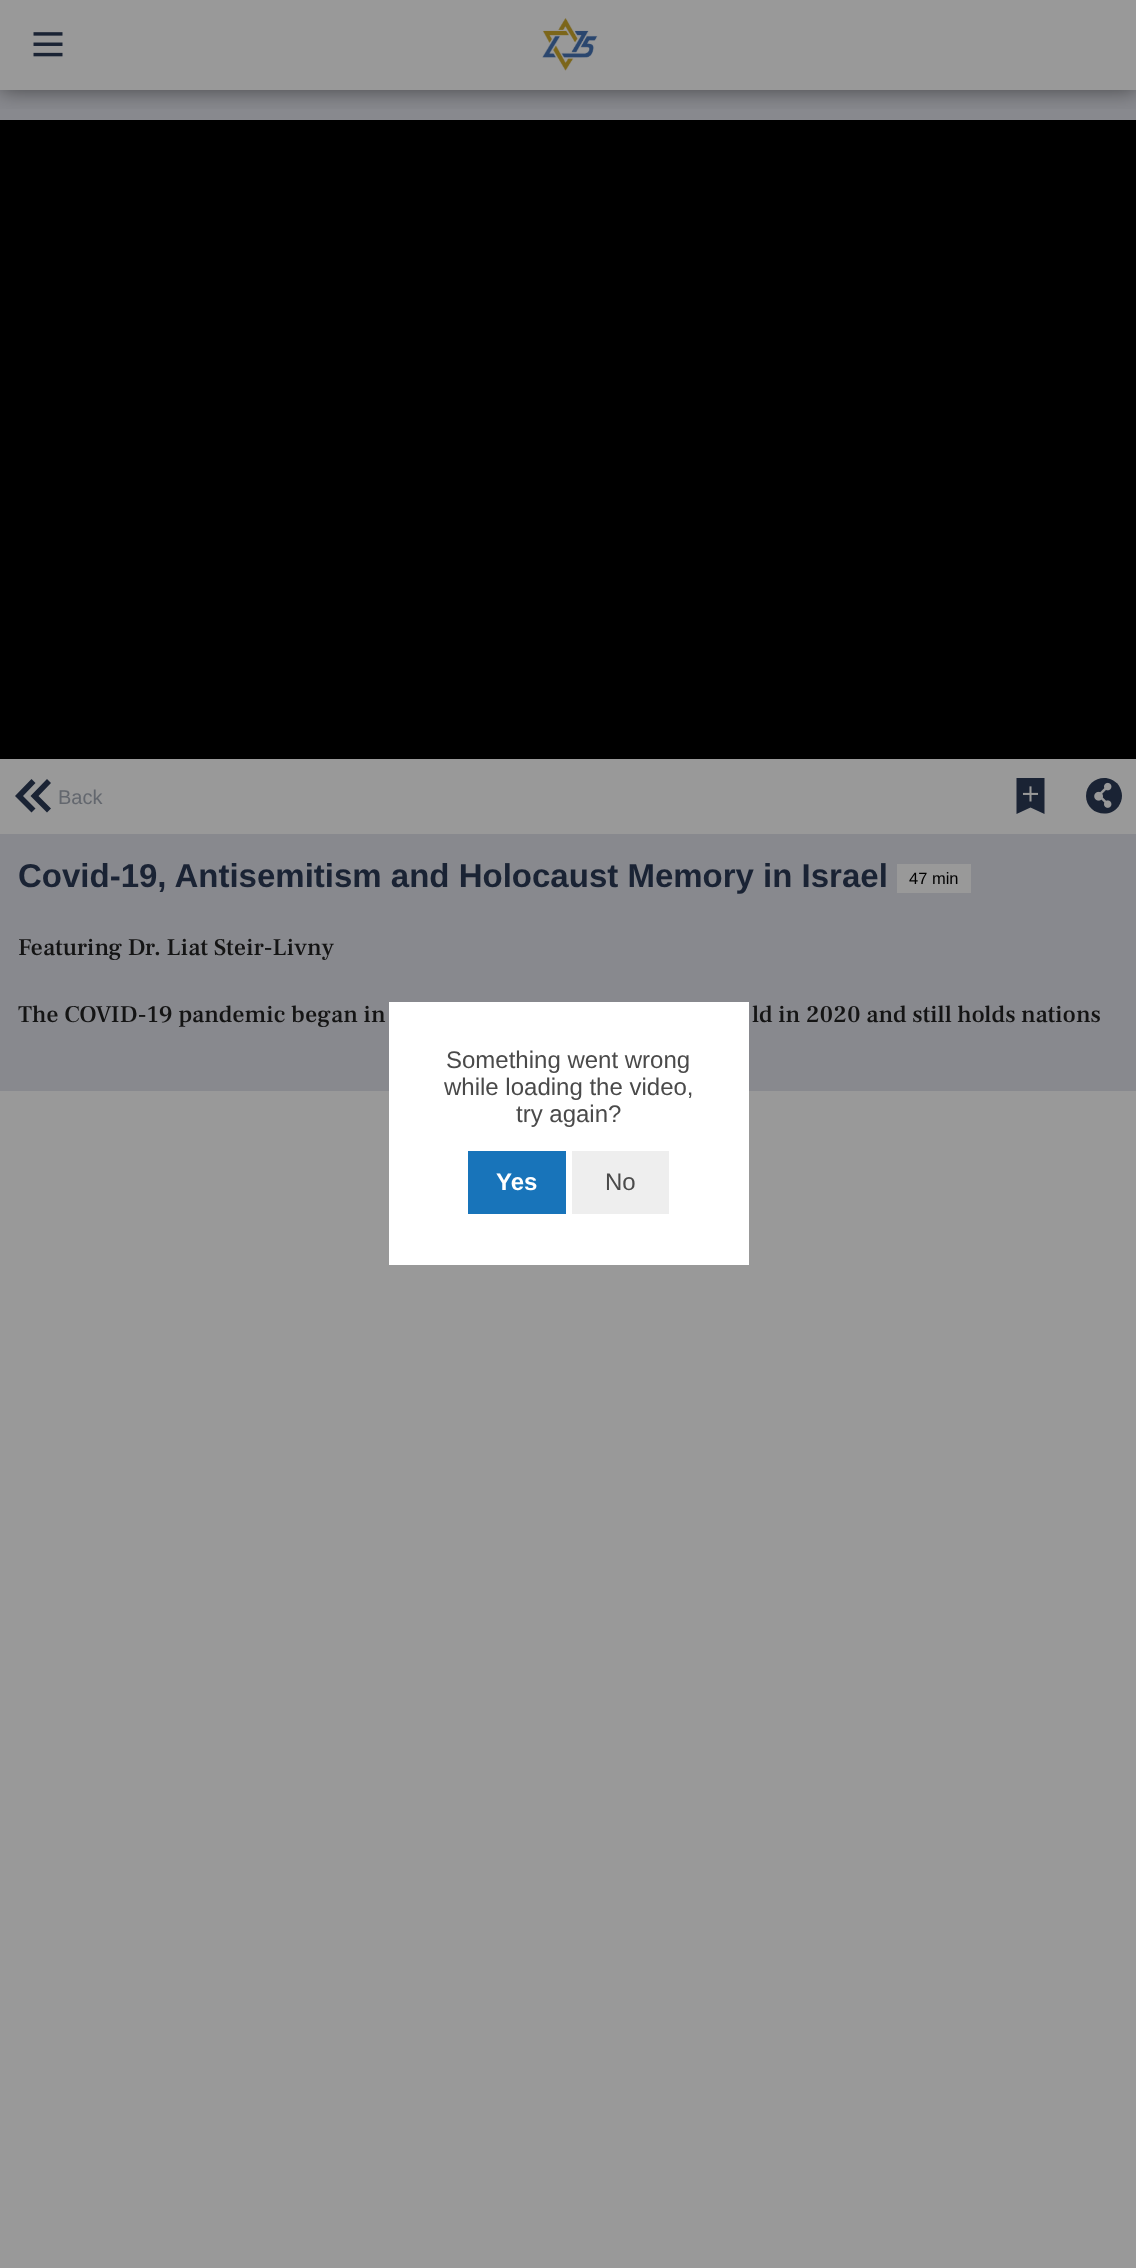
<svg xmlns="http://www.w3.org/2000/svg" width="1136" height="2268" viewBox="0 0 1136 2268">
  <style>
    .t1 { font: 20px Liberation Sans; fill: #63676e; }
    .t2 { font: bold 33px Liberation Sans; fill: #1a2334; }
    .t3 { font: 16.5px Liberation Sans; fill: #000; }
    .t4 { font: 500 24px Frank Ruhl Libre; fill: #141414; }
    .t5 { font: 24px Liberation Sans; fill: #4a4a4a; }
    .t6 { font: bold 24px Liberation Sans; fill: #fff; }
  </style>
  <defs>
    <clipPath id="clip1"><rect x="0" y="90" width="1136" height="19"/></clipPath>
  </defs>
  <rect width="100%" height="100%" fill="#999"/>
  <rect x="0" y="90" width="1136" height="1001" fill="#88898e"/>
  <rect x="0" y="120" width="1136" height="639" fill="#000"/>
  <g clip-path="url(#clip1)">
    <rect x="0" y="0" width="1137" height="90" fill="#00000080" filter="blur(11px)"/>
  </g>
  <image x="33" y="32" width="30" height="25" href="images/1.png"/>
  <image x="542" y="18" width="56" height="53" href="images/2.png"/>
  <rect x="0" y="759" width="1136" height="75" fill="#999"/>
  <path d="M47 779L51 783L38.5 796L51 808.5L47 812.5L30.5 796ZM31.5 779L35.5 783L23 796L35.5 808.5L31.5 812.5L15 796Z" fill="#1a2334"/>
  <text x="58" y="804" class="t1">Back</text>
  <path d="M1044.5 778H1016.5V814L1030.5 807.5L1044.5 814Z" fill="#1a2334"/>
  <image x="1022" y="786" width="17" height="16" href="images/3.png"/>
  <path d="M1122 796C1122 799.5 1120.5 803.5 1118.5 806.5C1108 820 1086 813 1086 796C1086 778.5 1108 771.5 1118.5 785C1120.5 788 1122 792 1122 796Z" fill="#1a2334"/>
  <image x="1094" y="782" width="18" height="26" href="images/4.png"/>
  <text x="18" y="887" class="t2">Covid-19, Antisemitism and Holocaust Memory in Israel</text>
  <rect x="897" y="864" width="74" height="29" fill="#999"/>
  <text x="909" y="884" class="t3">47 min</text>
  <text x="18" y="955" class="t4">Featuring Dr. Liat Steir-Livny</text>
  <text x="18" y="1022" class="t4">The COVID-19 pandemic began in</text>
  <text x="752" y="1022" class="t4">ld in 2020 and still holds nations</text>
  <rect x="389" y="1002" width="360" height="263" fill="#fff"/>
  <text x="446" y="1068" class="t5">Something went wrong</text>
  <text x="444" y="1095" class="t5">while loading the video,</text>
  <text x="516" y="1122" class="t5">try again?</text>
  <rect x="468" y="1151" width="98" height="63" fill="#1874ba"/>
  <text x="496" y="1190" class="t6">Yes</text>
  <rect x="572" y="1151" width="97" height="63" fill="#eee"/>
  <text x="605" y="1190" class="t5">No</text>
</svg>
